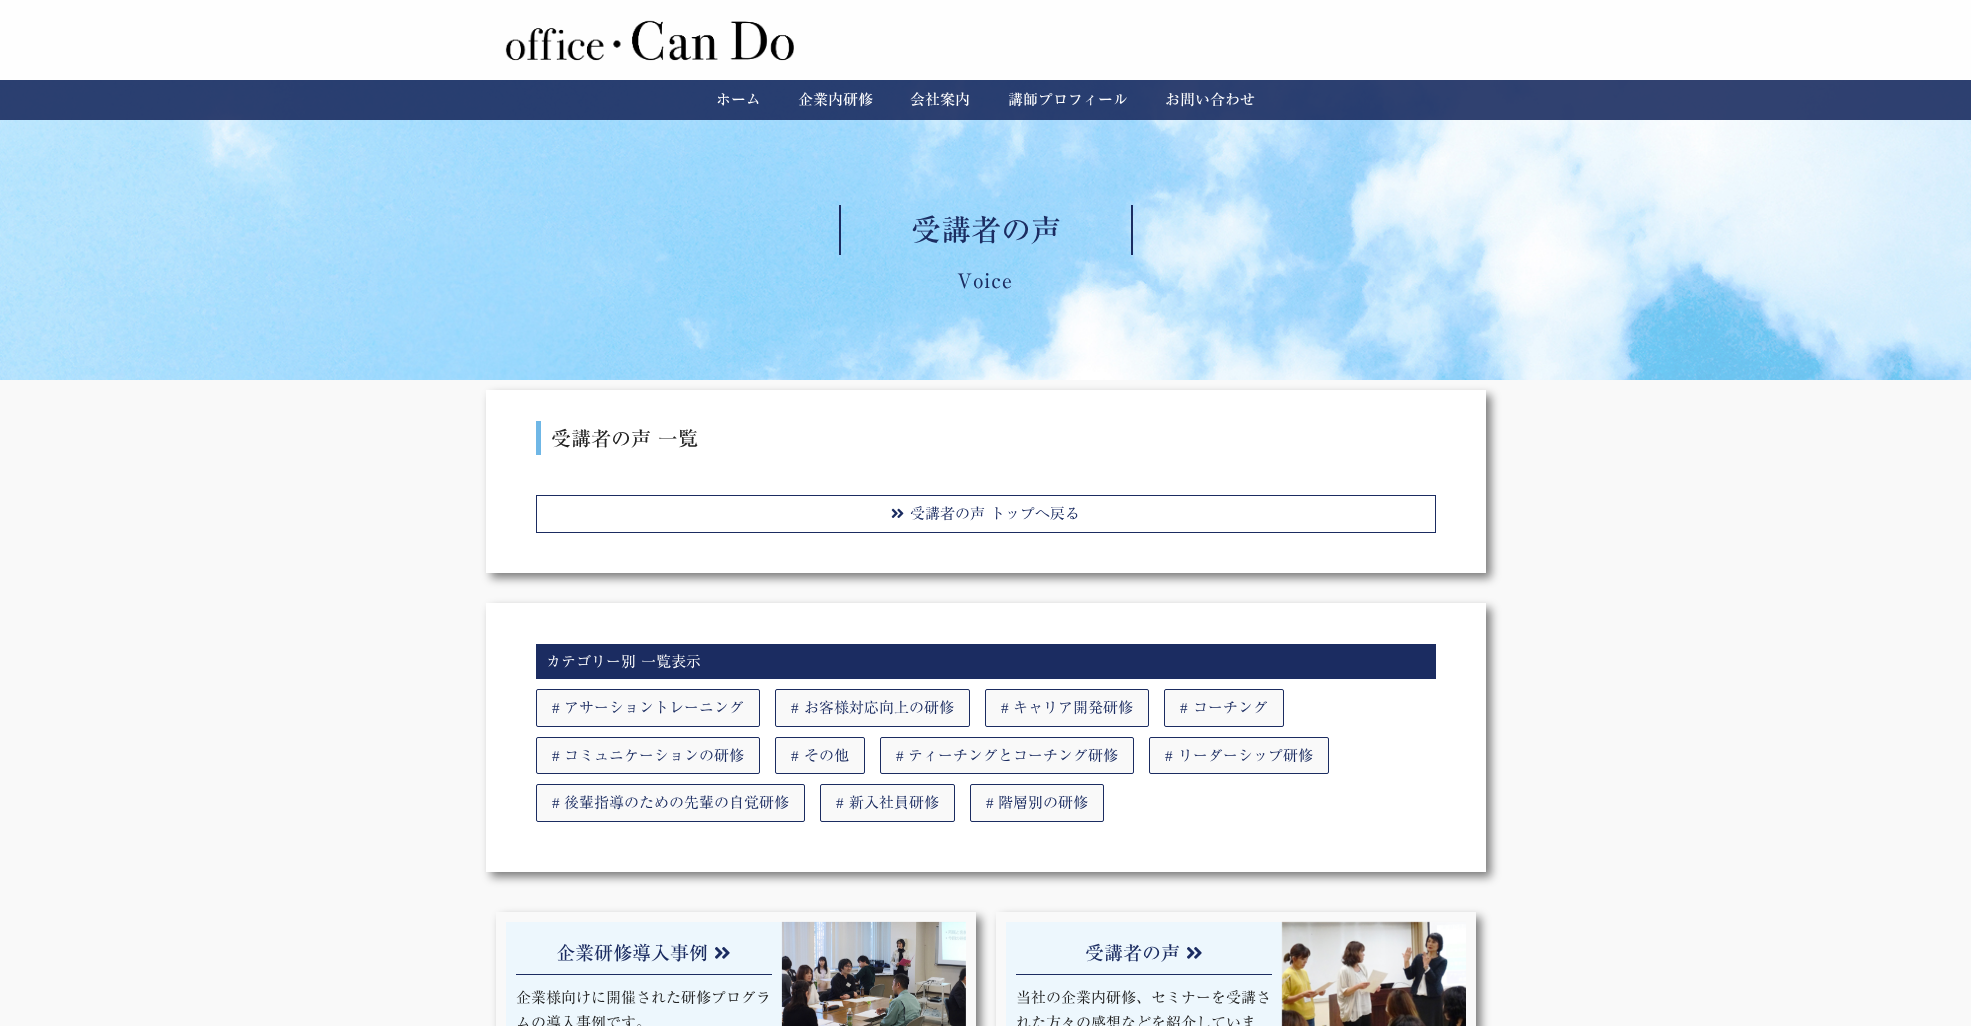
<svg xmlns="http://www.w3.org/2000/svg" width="1971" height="1026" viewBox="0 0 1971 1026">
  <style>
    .t1 { font: 15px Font; fill: #fff; }
    .t2 { font: 30px Font; fill: #1b2c61; }
    .t3 { font: 20px Font; letter-spacing: 1px; fill: #1b2c61; }
    .t4 { font: 20px Font; fill: #222; }
    .t5 { font: 15px 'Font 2'; fill: #1b2c61; }
    .t6 { font: 15px 'Font 2'; fill: #fff; }
    .t7 { font: 15px Liberation Serif; fill: #1b2c61; }
    .t8 { font: 19px Font; fill: #1b2c61; }
    .t9 { font: 15px 'Font 2'; fill: #222; }
  </style>
  <defs>
    <clipPath id="clip1"><path d="M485 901H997V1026H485ZM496 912H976V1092H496Z" clip-rule="evenodd"/></clipPath>
    <clipPath id="clip2"><path d="M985 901H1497V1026H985ZM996 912H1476V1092H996Z" clip-rule="evenodd"/></clipPath>
  </defs>
  <rect width="100%" height="100%" fill="#f9f9f9"/>
  <rect x="0" y="0" width="1971" height="80" fill="#fefefe"/>
  <image x="505" y="20" width="289" height="41" href="images/1.png"/>
  <image x="0" y="80" width="1971" height="300" href="images/2.png"/>
  <rect x="0" y="80" width="1971" height="40" fill="#1b2c61e6"/>
  <text x="716" y="105" class="t1">ホーム</text>
  <text x="798" y="105" class="t1">企業内研修</text>
  <text x="910" y="105" class="t1">会社案内</text>
  <text x="1008" y="105" class="t1">講師プロフィール</text>
  <text x="1165" y="105" class="t1">お問い合わせ</text>
  <rect x="1131" y="205" width="2" height="50" fill="#1b2c61"/>
  <rect x="839" y="205" width="2" height="50" fill="#1b2c61"/>
  <text x="911" y="241" class="t2">受講者の声</text>
  <text x="957" y="288" class="t3">Voice</text>
  <rect x="491" y="395" width="1000" height="183" fill="#00000080" filter="blur(5px)"/>
  <rect x="486" y="390" width="1000" height="183" fill="#fff"/>
  <rect x="536" y="421" width="5" height="34" fill="#6fb7e6"/>
  <text x="551" y="446" class="t4">受講者の声 一覧</text>
  <rect x="536.5" y="495.5" width="899" height="37" fill="none" stroke="#1b2c61"/>
  <image x="891" y="508" width="13" height="10" href="images/3.png"/>
  <text x="910" y="519" class="t5">受講者の声 トップへ戻る</text>
  <rect x="491" y="608" width="1000" height="269" fill="#00000080" filter="blur(5px)"/>
  <rect x="486" y="603" width="1000" height="269" fill="#fff"/>
  <rect x="536" y="644" width="900" height="35" fill="#1b2c61"/>
  <text x="546" y="667" class="t6">カテゴリー別 一覧表示</text>
  <rect x="536.5" y="689.5" width="223" height="37" rx="1.5" fill="#f9f9f9" stroke="#1b2c61"/>
  <text x="552" y="713" class="t7">#</text>
  <text x="564" y="713" class="t5">アサーショントレーニング</text>
  <rect x="775.5" y="689.5" width="194" height="37" rx="1.5" fill="#f9f9f9" stroke="#1b2c61"/>
  <text x="791" y="713" class="t7">#</text>
  <text x="804" y="713" class="t5">お客様対応向上の研修</text>
  <rect x="985.5" y="689.5" width="163" height="37" rx="1.5" fill="#f9f9f9" stroke="#1b2c61"/>
  <text x="1001" y="713" class="t7">#</text>
  <text x="1013" y="713" class="t5">キャリア開発研修</text>
  <rect x="1164.5" y="689.5" width="119" height="37" rx="1.5" fill="#f9f9f9" stroke="#1b2c61"/>
  <text x="1180" y="713" class="t7">#</text>
  <text x="1193" y="713" class="t5">コーチング</text>
  <rect x="536.5" y="737.5" width="223" height="36" rx="1.5" fill="#f9f9f9" stroke="#1b2c61"/>
  <text x="552" y="761" class="t7">#</text>
  <text x="564" y="761" class="t5">コミュニケーションの研修</text>
  <rect x="775.5" y="737.5" width="89" height="36" rx="1.5" fill="#f9f9f9" stroke="#1b2c61"/>
  <text x="791" y="761" class="t7">#</text>
  <text x="804" y="761" class="t5">その他</text>
  <rect x="880.5" y="737.5" width="253" height="36" rx="1.5" fill="#f9f9f9" stroke="#1b2c61"/>
  <text x="896" y="761" class="t7">#</text>
  <text x="908" y="761" class="t5">ティーチングとコーチング研修</text>
  <rect x="1149.5" y="737.5" width="179" height="36" rx="1.5" fill="#f9f9f9" stroke="#1b2c61"/>
  <text x="1165" y="761" class="t7">#</text>
  <text x="1178" y="761" class="t5">リーダーシップ研修</text>
  <rect x="536.5" y="784.5" width="268" height="37" rx="1.5" fill="#f9f9f9" stroke="#1b2c61"/>
  <text x="552" y="808" class="t7">#</text>
  <text x="564" y="808" class="t5">後輩指導のための先輩の自覚研修</text>
  <rect x="820.5" y="784.5" width="134" height="37" rx="1.5" fill="#f9f9f9" stroke="#1b2c61"/>
  <text x="836" y="808" class="t7">#</text>
  <text x="849" y="808" class="t5">新入社員研修</text>
  <rect x="970.5" y="784.5" width="133" height="37" rx="1.5" fill="#f9f9f9" stroke="#1b2c61"/>
  <text x="986" y="808" class="t7">#</text>
  <text x="998" y="808" class="t5">階層別の研修</text>
  <g clip-path="url(#clip1)">
    <rect x="501" y="917" width="480" height="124" fill="#00000080" filter="blur(5px)"/>
  </g>
  <rect x="506" y="922" width="276" height="104" fill="#edf7fd"/>
  <rect x="516" y="974" width="256" height="1" fill="#1b2c61"/>
  <text x="556" y="960" class="t8">企業研修導入事例</text>
  <image x="715" y="947" width="15" height="12" href="images/4.png"/>
  <text x="516" y="1003" class="t9">企業様向けに開催された研修プログラ</text>
  <text x="516" y="1028" class="t9">ムの導入事例です。</text>
  <image x="781" y="921" width="185" height="105" href="images/5.png"/>
  <g clip-path="url(#clip2)">
    <rect x="1001" y="917" width="480" height="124" fill="#00000080" filter="blur(5px)"/>
  </g>
  <rect x="1006" y="922" width="276" height="104" fill="#edf7fd"/>
  <rect x="1016" y="974" width="256" height="1" fill="#1b2c61"/>
  <text x="1085" y="960" class="t8">受講者の声</text>
  <image x="1187" y="947" width="15" height="12" href="images/4.png"/>
  <text x="1016" y="1003" class="t9">当社の企業内研修、セミナーを受講さ</text>
  <text x="1016" y="1028" class="t9">れた方々の感想などを紹介していま</text>
  <image x="1281" y="921" width="185" height="105" href="images/6.png"/>
</svg>
